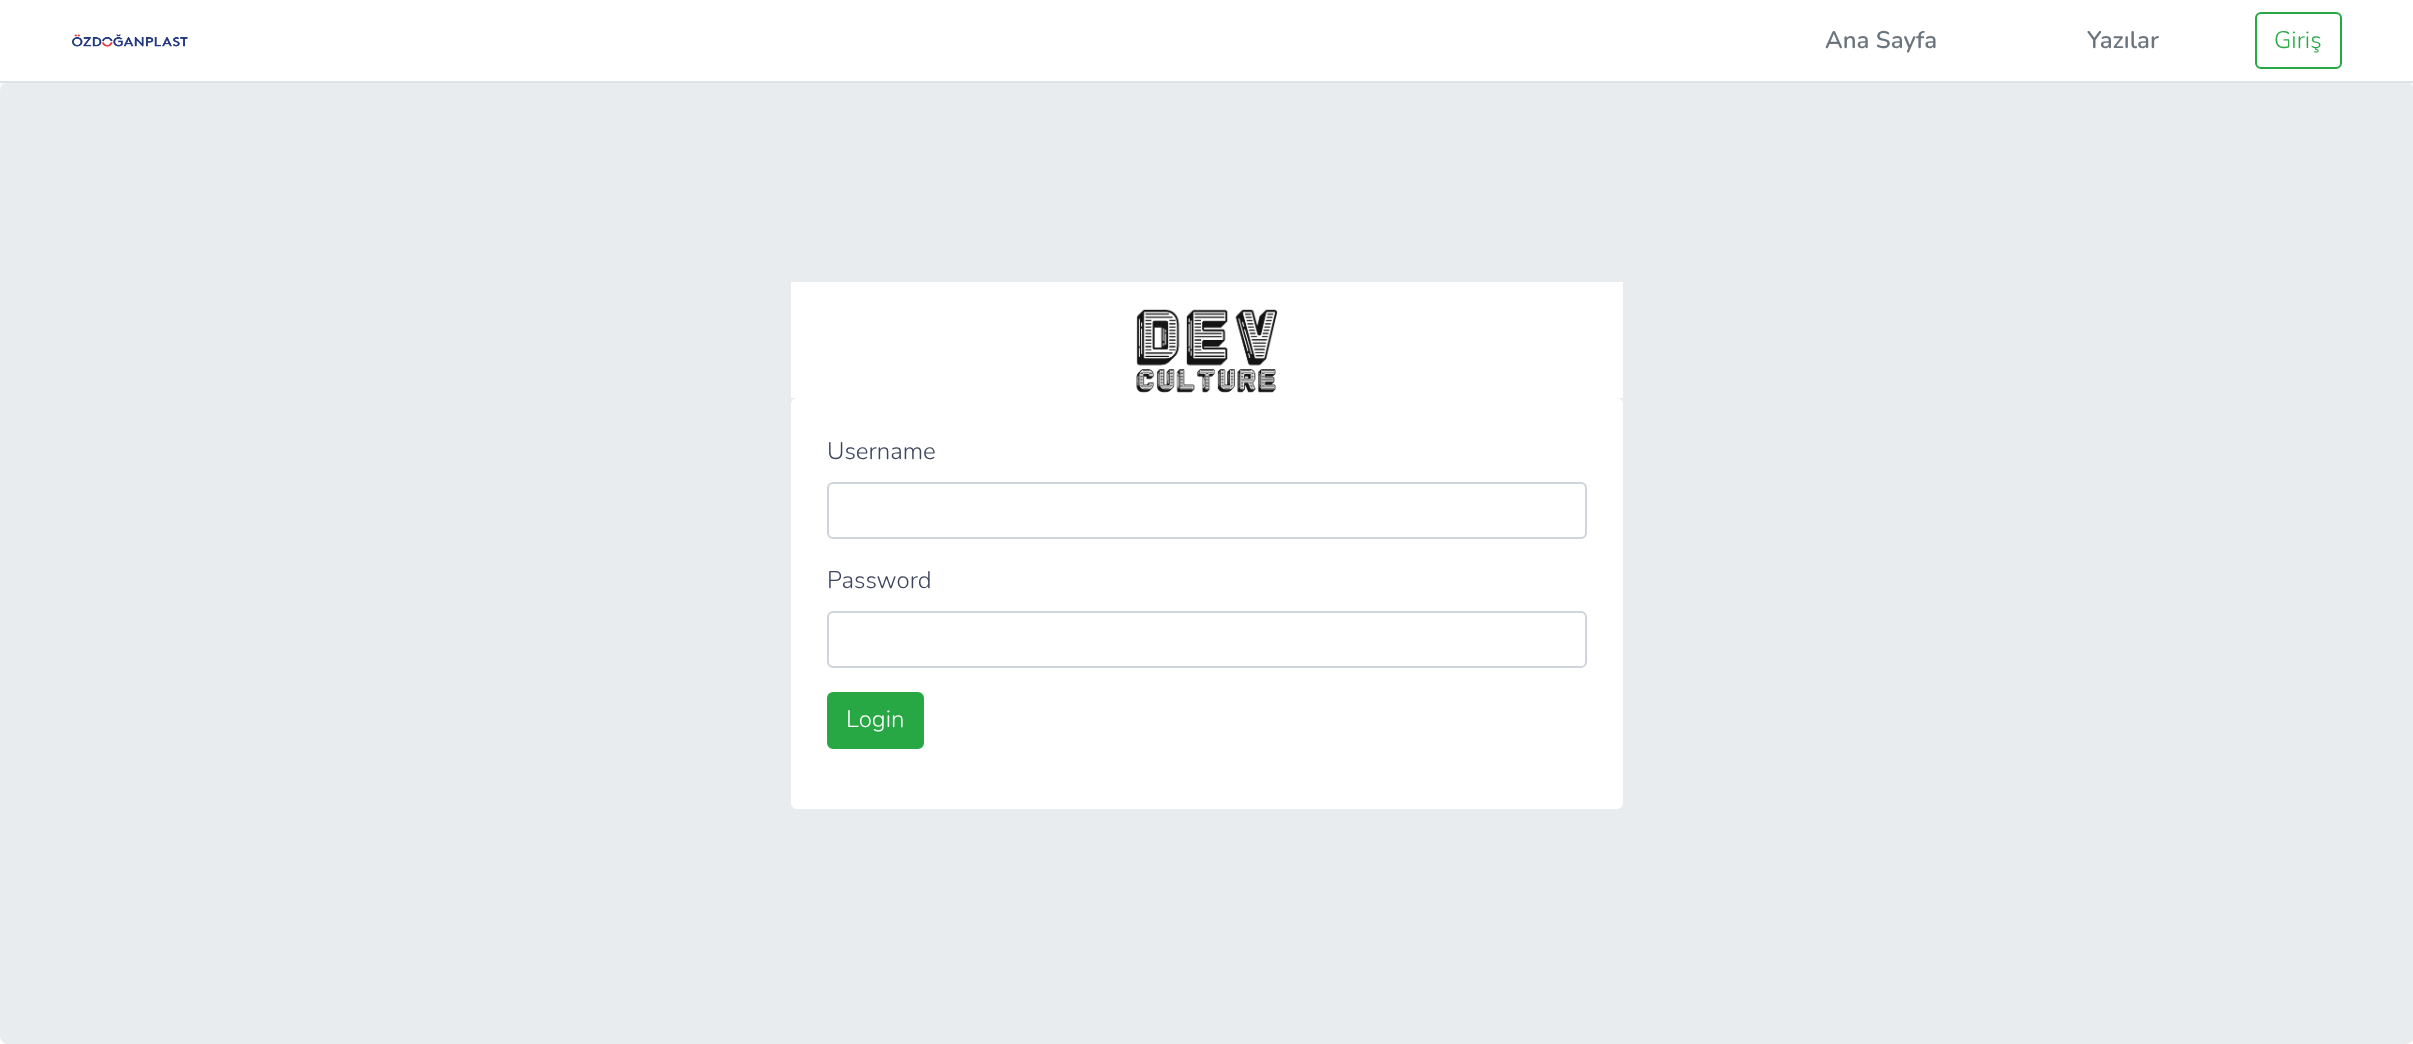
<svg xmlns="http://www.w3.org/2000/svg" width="2413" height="1044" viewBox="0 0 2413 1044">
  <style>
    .t1 { font: 600 24px Nunito; fill: #6c757d; }
    .t2 { font: 300 24px Nunito; fill: #28a745; }
    .t3 { font: 300 24px Nunito; fill: #3d455c; }
    .t4 { font: 300 24px Nunito; fill: #fff; }
  </style>
  <rect width="100%" height="100%" fill="#fff"/>
  <rect x="0" y="3" width="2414" height="83" fill="#00000012" filter="blur(3px)"/>
  <rect x="0" y="0" width="2413" height="81" fill="#fff"/>
  <rect x="0" y="81" width="2413" height="2" fill="#dee2e6"/>
  <image x="72" y="34" width="116" height="13" href="images/1.png"/>
  <text x="1825" y="48" class="t1">Ana Sayfa</text>
  <text x="2087" y="48" class="t1">Yazılar</text>
  <rect x="2256" y="13" width="85" height="55" rx="5" fill="none" stroke="#28a745" stroke-width="2"/>
  <text x="2274" y="48" class="t2">Giriş</text>
  <rect x="0" y="83" width="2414" height="961" rx="8" fill="#e9ecef"/>
  <rect x="791" y="282" width="832" height="116" fill="#fff"/>
  <image x="1136" y="309" width="142" height="84" href="images/2.png"/>
  <rect x="791" y="398" width="832" height="411" rx="6" fill="#fff"/>
  <text x="827" y="459" class="t3">Username</text>
  <rect x="828" y="483" width="758" height="55" rx="5" fill="none" stroke="#ced4da" stroke-width="2"/>
  <text x="827" y="588" class="t3">Password</text>
  <rect x="828" y="612" width="758" height="55" rx="5" fill="none" stroke="#ced4da" stroke-width="2"/>
  <rect x="828" y="693" width="95" height="55" rx="5" fill="#28a745" stroke="#28a745" stroke-width="2"/>
  <text x="846" y="727" class="t4">Login</text>
</svg>
